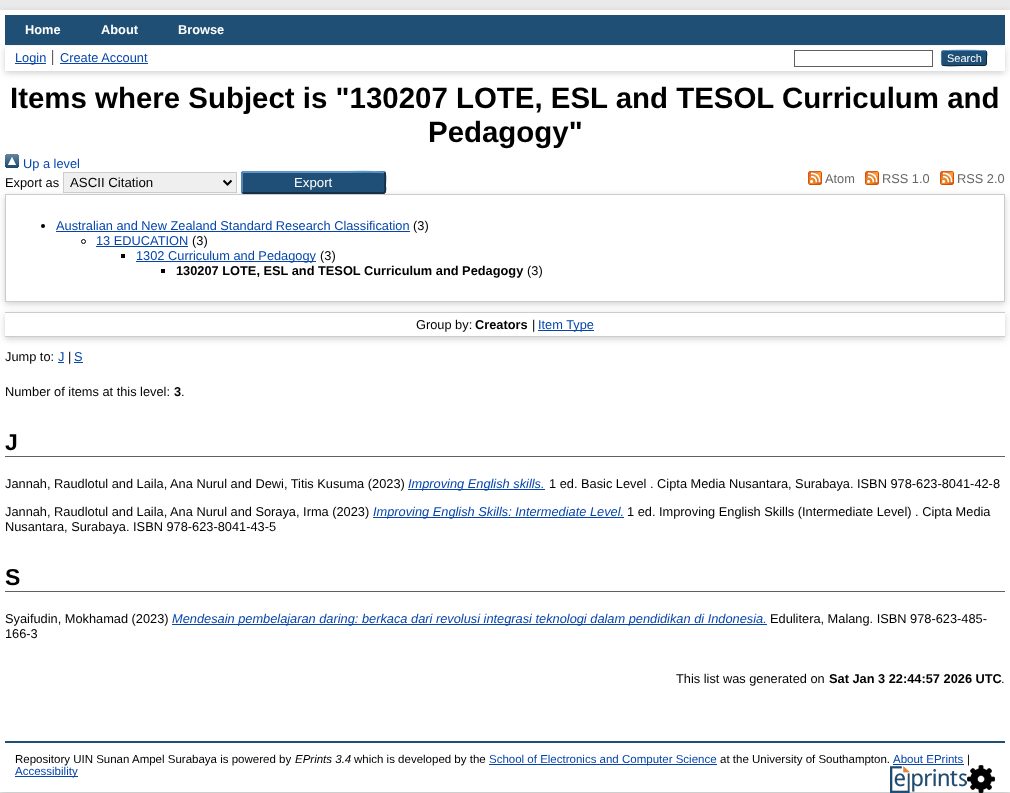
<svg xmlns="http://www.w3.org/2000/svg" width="1010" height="793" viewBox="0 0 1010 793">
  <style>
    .t1 { font: bold 12.8px Liberation Sans; fill: #fff; }
    .t2 { font: 12.8px Liberation Sans; fill: #0645ad; }
    .t3 { font: 11px Liberation Sans; fill: #fff; }
    .t4 { font: bold 29.45px Liberation Sans; fill: #000; }
    .t5 { font: 12.8px Liberation Sans; fill: #000; }
    .t6 { font: 13.25px Liberation Sans; fill: #000; }
    .t7 { font: 13.25px Liberation Sans; fill: #fff; }
    .t8 { font: 12.8px Liberation Sans; fill: #666; }
    .t9 { font: bold 12.8px Liberation Sans; fill: #000; }
    .t10 { font: bold 23px Liberation Sans; fill: #000; }
    .t11 { font: italic 12.8px Liberation Sans; fill: #0645ad; }
    .t12 { font: 11.5px Liberation Sans; fill: #000; }
    .t13 { font: italic 11.5px Liberation Sans; fill: #000; }
    .t14 { font: 11.5px Liberation Sans; fill: #0645ad; }
  </style>
  <defs>
    <clipPath id="clip1"><path d="M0 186H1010V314H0ZM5 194H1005V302H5Z" clip-rule="evenodd"/></clipPath>
    <clipPath id="clip2"><path d="M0 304H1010V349H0ZM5 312H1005V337H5Z" clip-rule="evenodd"/></clipPath>
  </defs>
  <rect width="100%" height="100%" fill="#eaeaea"/>
  <rect x="0" y="12" width="1010" height="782" fill="#6464644d" filter="blur(3px)"/>
  <rect x="0" y="10" width="1010" height="782" fill="#fff"/>
  <rect x="5" y="15" width="1000" height="30" fill="#204f76"/>
  <text x="25" y="34" class="t1">Home</text>
  <text x="101" y="34" class="t1">About</text>
  <text x="178" y="34" class="t1">Browse</text>
  <rect x="5" y="48" width="1000" height="25" fill="#6464644d" filter="blur(3px)"/>
  <rect x="5" y="46" width="1000" height="25" fill="#fff"/>
  <rect x="15" y="63" width="31" height="1" fill="#0645ad"/>
  <text x="15" y="62" class="t2">Login</text>
  <rect x="52" y="50" width="1" height="15" fill="#606060"/>
  <text x="60" y="62" class="t2">Create Account</text>
  <rect x="53" y="50" width="1" height="15" fill="#e8e8e8"/>
  <rect x="60" y="63" width="88" height="1" fill="#0645ad"/>
  <rect x="794.5" y="50.5" width="138" height="16" fill="none" stroke="#606060"/>
  <rect x="941" y="50" width="46" height="16" rx="3" fill="#1f4f76"/>
  <path d="M942 51C943.5 50 984.5 50 986 51" fill="none" stroke="#5b97c7"/>
  <path d="M986 51C987.5 53 986.5 56 986.5 58C986.5 67 987 65.5 977.5 65.5H964C960.5 65.5 944 66.5 942 65" fill="none" stroke="#0d2131"/>
  <path d="M942 65C941 63.5 941.5 59.5 941.5 58C941.5 56.5 941 52.5 942 51" fill="none" stroke="#5287b3"/>
  <text x="947" y="62" class="t3">Search</text>
  <text x="10" y="108" class="t4">Items where Subject is "130207 LOTE, ESL and TESOL Curriculum and</text>
  <text x="428" y="142" class="t4">Pedagogy"</text>
  <image x="5" y="154" width="14" height="14" href="images/1.png"/>
  <text x="23" y="168" class="t2">Up a level</text>
  <g clip-path="url(#clip1)">
    <rect x="5" y="196" width="1000" height="108" fill="#6464644d" filter="blur(3px)"/>
  </g>
  <text x="5" y="187" class="t5">Export as</text>
  <rect x="63.5" y="172.5" width="173" height="20" fill="#efefef" stroke="#ccc"/>
  <path d="M223.5 180.5L227.5 184.5L231.5 180.5" fill="none" stroke="#000" stroke-width="2"/>
  <text x="70" y="187" class="t6">ASCII Citation</text>
  <rect x="241" y="171" width="145" height="23" rx="3" fill="#1f4f76"/>
  <path d="M242.5 172.5L244 172H336.5C339.5 172 383 171 384.5 172.5" fill="none" stroke="#5b97c7" stroke-width="2"/>
  <path d="M384.5 172.5C386 174 385 183 385 185.5C385 187 386.5 192 383.5 193H244L242.5 192.5" fill="none" stroke="#13324a" stroke-width="2"/>
  <path d="M242.5 192.5C242 192 242 191.5 242 191V174C242 173.5 242 173 242.5 172.5" fill="none" stroke="#5287b3" stroke-width="2"/>
  <text x="294" y="187" class="t7">Export</text>
  <image x="808" y="171" width="14" height="14" href="images/2.png"/>
  <text x="825" y="183" class="t8">Atom</text>
  <image x="865" y="171" width="14" height="14" href="images/2.png"/>
  <text x="882" y="183" class="t8">RSS 1.0</text>
  <image x="940" y="171" width="14" height="14" href="images/2.png"/>
  <text x="957" y="183" class="t8">RSS 2.0</text>
  <rect x="5.5" y="194.5" width="999" height="107" fill="none" stroke="#ccc"/>
  <circle cx="43" cy="226" r="2" fill="#000"/>
  <text x="56" y="230" class="t2">Australian and New Zealand Standard Research Classification</text>
  <rect x="56" y="231" width="354" height="1" fill="#0645ad"/>
  <text x="413" y="230" class="t5">(3)</text>
  <circle cx="83.5" cy="241.5" r="2" fill="none" stroke="#000"/>
  <text x="96" y="245" class="t2">13 EDUCATION</text>
  <rect x="96" y="246" width="92" height="1" fill="#0645ad"/>
  <text x="192" y="245" class="t5">(3)</text>
  <rect x="121" y="254" width="4" height="4" fill="#000"/>
  <rect x="136" y="261" width="180" height="1" fill="#0645ad"/>
  <text x="136" y="260" class="t2">1302 Curriculum and Pedagogy</text>
  <text x="320" y="260" class="t5">(3)</text>
  <rect x="161" y="269" width="4" height="4" fill="#000"/>
  <text x="176" y="275" class="t9">130207 LOTE, ESL and TESOL Curriculum and Pedagogy</text>
  <text x="527" y="275" class="t5">(3)</text>
  <g clip-path="url(#clip2)">
    <rect x="5" y="314" width="1000" height="25" fill="#6464644d" filter="blur(3px)"/>
  </g>
  <rect x="5" y="312" width="1000" height="1" fill="#ccc"/>
  <rect x="5" y="336" width="1000" height="1" fill="#ccc"/>
  <text x="416" y="329" class="t5">Group by:</text>
  <text x="475" y="329" class="t9">Creators</text>
  <text x="532" y="329" class="t5">|</text>
  <rect x="538" y="330" width="56" height="1" fill="#0645ad"/>
  <text x="538" y="329" class="t2">Item Type</text>
  <text x="5" y="361" class="t5">Jump to:</text>
  <text x="58" y="361" class="t2">J</text>
  <rect x="58" y="362" width="6" height="1" fill="#0645ad"/>
  <text x="68" y="361" class="t5">|</text>
  <text x="74" y="361" class="t2">S</text>
  <rect x="74" y="362" width="9" height="1" fill="#0645ad"/>
  <text x="5" y="396" class="t5">Number of items at this level:</text>
  <text x="174" y="396" class="t9">3</text>
  <text x="181" y="396" class="t5">.</text>
  <rect x="5" y="456" width="1000" height="1" fill="#606060"/>
  <text x="5" y="450" class="t10">J</text>
  <text x="5" y="488" class="t5">Jannah, Raudlotul and Laila, Ana Nurul and Dewi, Titis Kusuma (2023)</text>
  <rect x="408" y="489" width="137" height="1" fill="#0645ad"/>
  <text x="408" y="488" class="t11">Improving English skills.</text>
  <text x="549" y="488" class="t5">1 ed. Basic Level . Cipta Media Nusantara, Surabaya. ISBN 978-623-8041-42-8</text>
  <text x="5" y="516" class="t5">Jannah, Raudlotul and Laila, Ana Nurul and Soraya, Irma (2023)</text>
  <rect x="373" y="517" width="251" height="1" fill="#0645ad"/>
  <text x="373" y="516" class="t11">Improving English Skills: Intermediate Level.</text>
  <text x="627" y="516" class="t5">1 ed. Improving English Skills (Intermediate Level) . Cipta Media</text>
  <text x="5" y="531" class="t5">Nusantara, Surabaya. ISBN 978-623-8041-43-5</text>
  <rect x="5" y="591" width="1000" height="1" fill="#606060"/>
  <text x="5" y="585" class="t10">S</text>
  <text x="5" y="623" class="t5">Syaifudin, Mokhamad (2023)</text>
  <rect x="172" y="624" width="595" height="1" fill="#0645ad"/>
  <text x="172" y="623" class="t11">Mendesain pembelajaran daring: berkaca dari revolusi integrasi teknologi dalam pendidikan di Indonesia.</text>
  <text x="770" y="623" class="t5">Edulitera, Malang. ISBN 978-623-485-</text>
  <text x="5" y="638" class="t5">166-3</text>
  <text x="676" y="683" class="t5">This list was generated on</text>
  <text x="829" y="683" class="t9">Sat Jan 3 22:44:57 2026 UTC</text>
  <text x="1001" y="683" class="t5">.</text>
  <rect x="5" y="741" width="1000" height="2" fill="#204f76"/>
  <text x="15" y="763" class="t12">Repository UIN Sunan Ampel Surabaya is powered by</text>
  <text x="295" y="763" class="t13">EPrints 3.4</text>
  <text x="354" y="763" class="t12">which is developed by the</text>
  <rect x="489" y="764" width="228" height="1" fill="#0645ad"/>
  <text x="489" y="763" class="t14">School of Electronics and Computer Science</text>
  <text x="720" y="763" class="t12">at the University of Southampton.</text>
  <text x="893" y="763" class="t14">About EPrints</text>
  <rect x="893" y="764" width="71" height="1" fill="#0645ad"/>
  <image x="967" y="765" width="28" height="28" href="images/4.png"/>
  <text x="967" y="763" class="t12">|</text>
  <rect x="15" y="776" width="63" height="1" fill="#0645ad"/>
  <text x="15" y="775" class="t14">Accessibility</text>
  <image x="890" y="766" width="77" height="27" href="images/3.png"/>
</svg>
